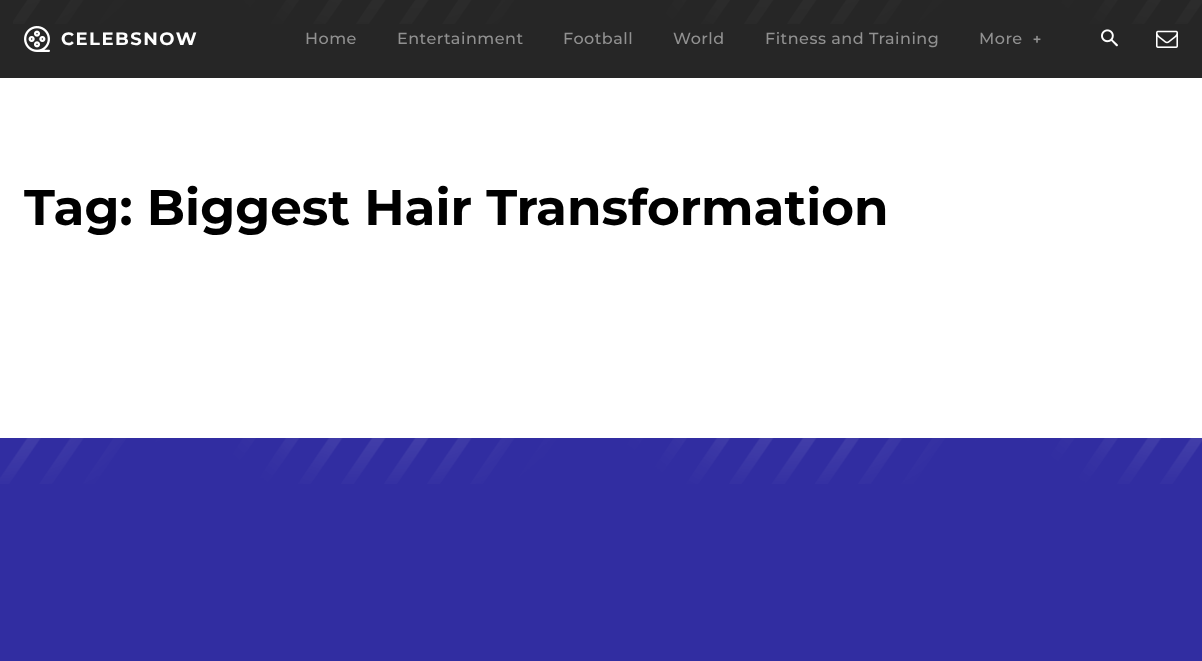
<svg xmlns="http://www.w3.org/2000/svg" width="1202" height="661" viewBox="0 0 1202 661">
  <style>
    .t1 { font: bold 18px Montserrat; letter-spacing: 1.5px; fill: #fff; }
    .t2 { font: 500 16px Montserrat; letter-spacing: 0.5px; fill: #919191; }
    .t3 { font: bold 50px Montserrat; fill: #000; }
  </style>
  <rect width="100%" height="100%" fill="#fff"/>
  <rect x="0" y="0" width="1202" height="78" fill="#262626"/>
  <image x="13" y="0" width="1189" height="24" href="images/1.png"/>
  <image x="24" y="26" width="26" height="26" href="images/2.png"/>
  <text x="61" y="45" class="t1">CELEBSNOW</text>
  <text x="305" y="44" class="t2">Home</text>
  <text x="397" y="44" class="t2">Entertainment</text>
  <text x="563" y="44" class="t2">Football</text>
  <text x="673" y="44" class="t2">World</text>
  <text x="765" y="44" class="t2">Fitness and Training</text>
  <text x="979" y="44" class="t2">More</text>
  <image x="1033" y="35" width="8" height="8" href="images/3.png"/>
  <image x="1101" y="29" width="17" height="18" href="images/4.png"/>
  <image x="1156" y="30" width="22" height="18" href="images/5.png"/>
  <text x="24" y="225" class="t3">Tag: Biggest Hair Transformation</text>
  <rect x="0" y="438" width="1202" height="223" fill="#312da1"/>
  <image x="0" y="438" width="1202" height="46" href="images/6.png"/>
</svg>
